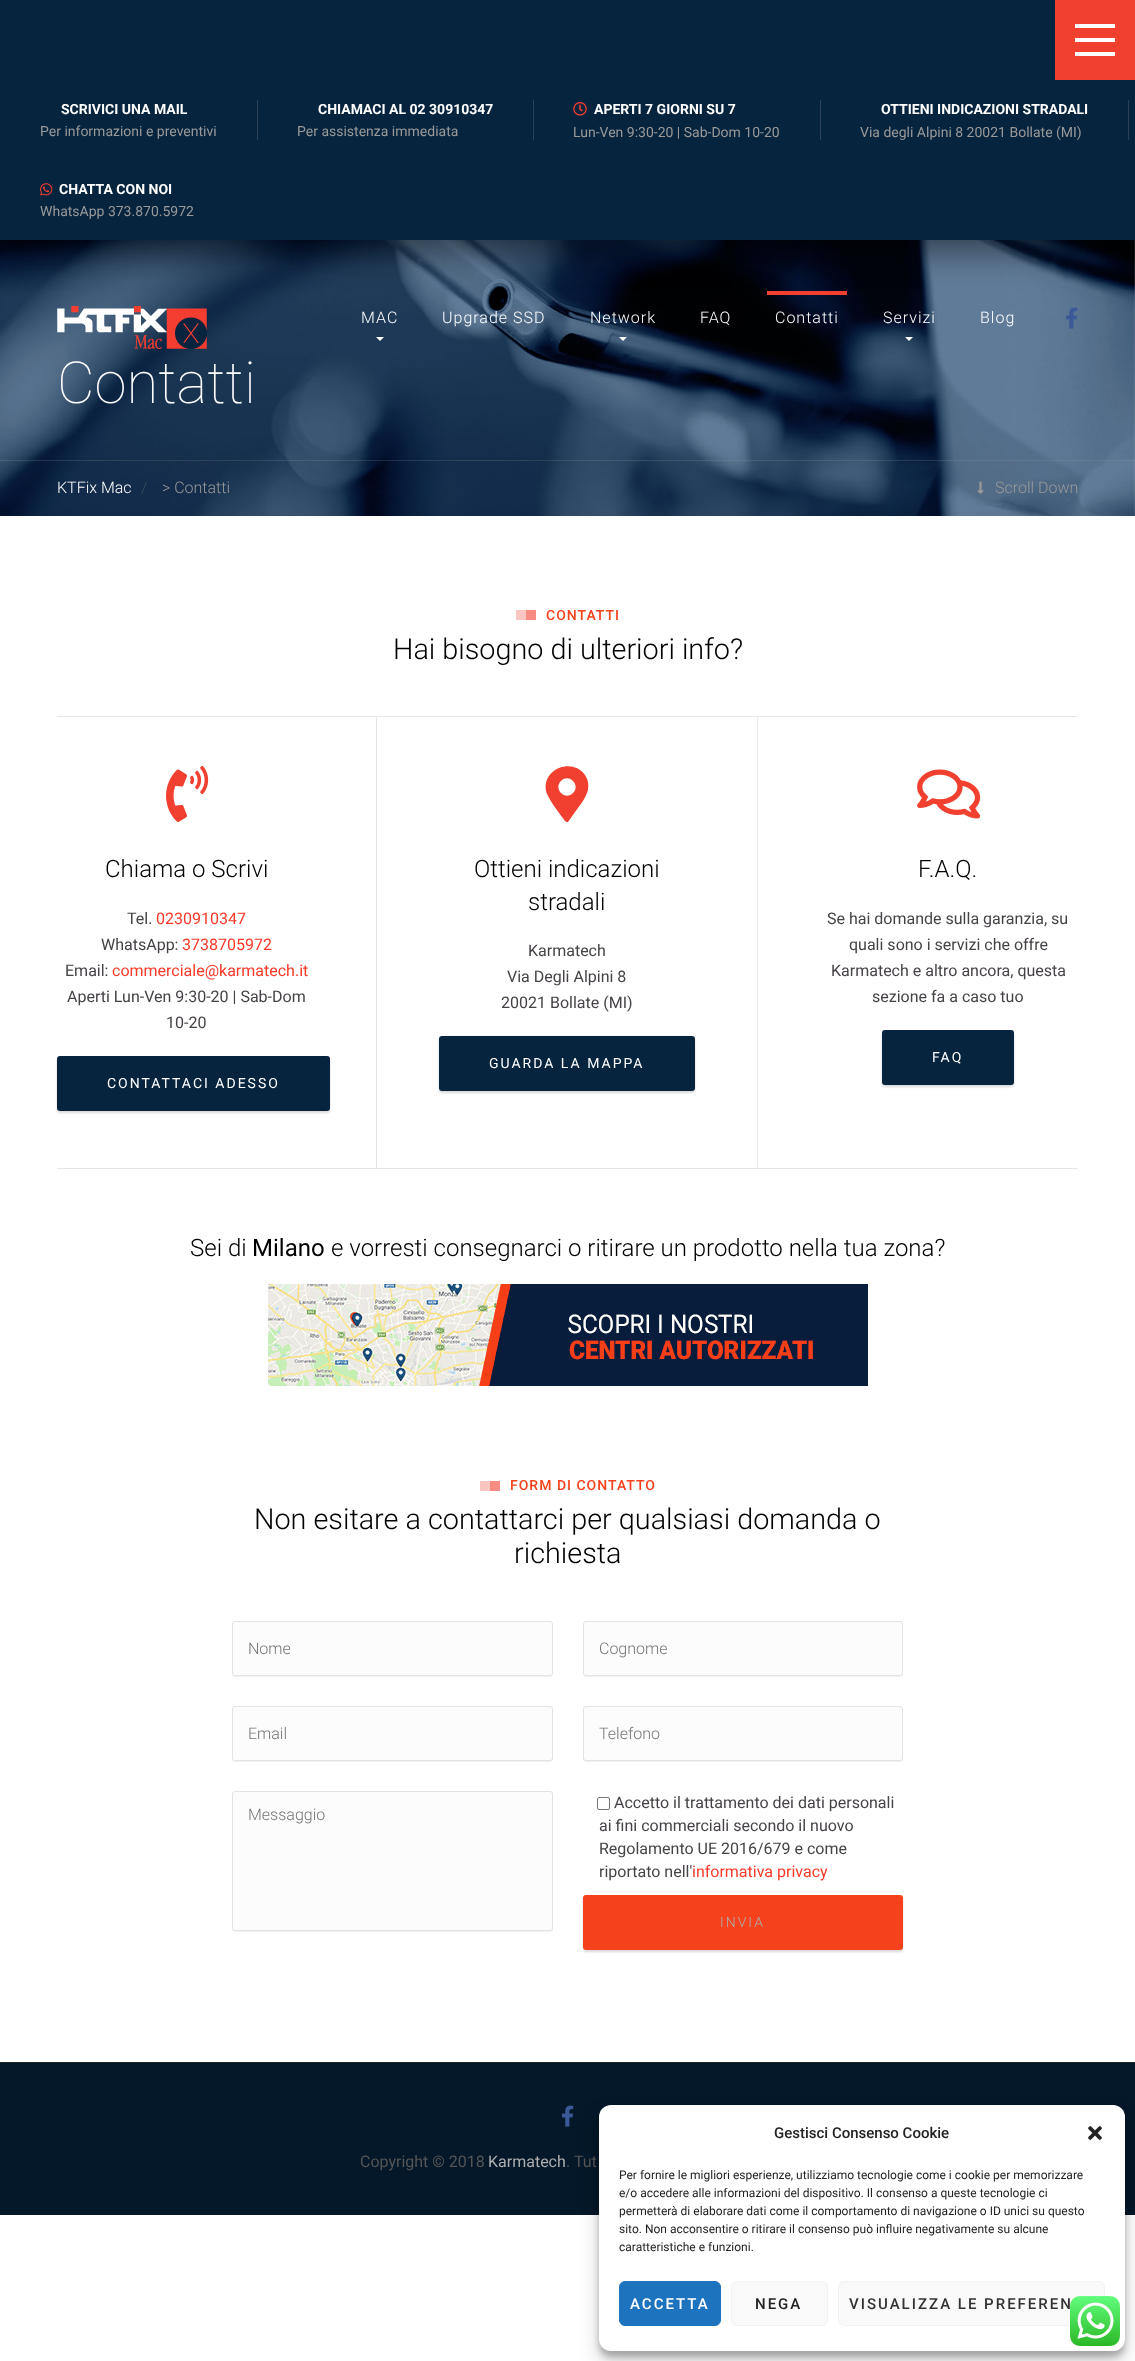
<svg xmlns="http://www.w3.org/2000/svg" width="1135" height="2361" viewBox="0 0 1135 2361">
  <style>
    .t1 { font: bold 14px Roboto; fill: #fff; }
    .t2 { font: 14px Roboto; fill: #999; }
    .t3 { font: 300 16px Roboto; letter-spacing: 1px; fill: #fff; }
    .t4 { font: 100 58px Roboto; fill: #fff; }
    .t5 { font: 300 16px Roboto; fill: #fff; }
    .t6 { font: 300 16px Roboto; fill: #3b4d62; }
    .t7 { font: 300 16px Roboto; fill: #999; }
    .t8 { font: 500 14px Roboto; letter-spacing: 1px; fill: #f5421c; }
    .t9 { font: 300 28.8px Roboto; fill: #000; }
    .t10 { font: 300 24px Roboto; fill: #000; }
    .t11 { font: 16px Roboto; fill: #464247; }
    .t12 { font: 16px Roboto; fill: #fa3929; }
    .t13 { font: 14px Roboto; letter-spacing: 2px; fill: #fff; }
    .t14 { font: 24px Roboto; fill: #000; }
    .t15 { font: 300 16px Roboto; fill: #757575; }
    .t16 { font: 300 14px Roboto; letter-spacing: 2px; fill: #aeaeae; }
    .t17 { font: 16px Roboto; fill: #555; }
    .t18 { font: 16px Roboto; fill: #aeaeae; }
    .t19 { font: 500 15px Roboto; fill: #222; }
    .t20 { font: 12px Roboto; fill: #222; }
    .t21 { font: 500 15px Roboto; letter-spacing: 2px; fill: #fff; }
    .t22 { font: 500 15px Roboto; letter-spacing: 2px; fill: #222; }
    .t23 { font: 500 15px Roboto; letter-spacing: 2px; fill: #333; }
  </style>
  <rect width="100%" height="100%" fill="#fff"/>
  <image x="0" y="240" width="1135" height="276" href="images/5.png"/>
  <rect x="0" y="10" width="1135" height="240" fill="#00000080" filter="blur(17.5px)"/>
  <rect x="0" y="0" width="1135" height="240" fill="#07243e"/>
  <rect x="1055" y="0" width="80" height="80" fill="#f13f30"/>
  <rect x="1075" y="24" width="40" height="4" fill="#fff"/>
  <rect x="1075" y="52" width="40" height="4" fill="#fff"/>
  <rect x="1075" y="38" width="40" height="4" fill="#fff"/>
  <text x="61" y="114" class="t1">SCRIVICI UNA MAIL</text>
  <text x="40" y="136" class="t2">Per informazioni e preventivi</text>
  <rect x="257" y="100" width="1" height="40" fill="#2c4155"/>
  <text x="318" y="114" class="t1">CHIAMACI AL 02 30910347</text>
  <text x="297" y="136" class="t2">Per assistenza immediata</text>
  <rect x="533" y="100" width="1" height="40" fill="#2c4155"/>
  <image x="573" y="102" width="14" height="14" href="images/1.png"/>
  <text x="594" y="114" class="t1">APERTI 7 GIORNI SU 7</text>
  <text x="573" y="137" class="t2">Lun-Ven 9:30-20 | Sab-Dom 10-20</text>
  <rect x="820" y="100" width="1" height="40" fill="#2c4155"/>
  <text x="881" y="114" class="t1">OTTIENI INDICAZIONI STRADALI</text>
  <text x="860" y="137" class="t2">Via degli Alpini 8 20021 Bollate (MI)</text>
  <rect x="1128" y="100" width="1" height="40" fill="#2c4155"/>
  <image x="40" y="183" width="13" height="13" href="images/2.png"/>
  <text x="59" y="194" class="t1">CHATTA CON NOI</text>
  <text x="40" y="216" class="t2">WhatsApp 373.870.5972</text>
  <image x="57" y="306" width="150" height="43" href="images/3.png"/>
  <text x="361" y="323" class="t3">MAC</text>
  <path d="M376 337H384L380 341Z" fill="#fff"/>
  <text x="442" y="323" class="t3">Upgrade SSD</text>
  <text x="590" y="323" class="t3">Network</text>
  <path d="M619 337H627L623 341Z" fill="#fff"/>
  <text x="700" y="323" class="t3">FAQ</text>
  <rect x="767" y="291" width="80" height="4" fill="#f13f30"/>
  <text x="775" y="323" class="t3">Contatti</text>
  <text x="883" y="323" class="t3">Servizi</text>
  <path d="M905 337H913L909 341Z" fill="#fff"/>
  <text x="980" y="323" class="t3">Blog</text>
  <image x="1066" y="307" width="12" height="22" href="images/4.png"/>
  <text x="57" y="403" class="t4">Contatti</text>
  <rect x="0" y="460" width="1135" height="1" fill="#99999933"/>
  <text x="57" y="493" class="t5">KTFix Mac</text>
  <text x="141" y="493" class="t6">/</text>
  <text x="162" y="493" class="t7">&gt; Contatti</text>
  <image x="977" y="481" width="7" height="13" href="images/6.png"/>
  <text x="995" y="493" class="t7">Scroll Down</text>
  <rect x="516" y="610" width="10" height="10" fill="#fbc5c1"/>
  <rect x="526" y="610" width="10" height="10" fill="#f78c83"/>
  <text x="546" y="620" class="t8">CONTATTI</text>
  <text x="393" y="659" class="t9">Hai bisogno di ulteriori info?</text>
  <rect x="376" y="716" width="1" height="453" fill="#e6e6e6"/>
  <rect x="57" y="716" width="319" height="1" fill="#e6e6e6"/>
  <image x="166" y="765" width="43" height="57" href="images/7.png"/>
  <text x="105" y="877" class="t10">Chiama o Scrivi</text>
  <text x="127" y="924" class="t11">Tel.</text>
  <text x="156" y="924" class="t12">0230910347</text>
  <text x="101" y="950" class="t11">WhatsApp:</text>
  <text x="182" y="950" class="t12">3738705972</text>
  <text x="65" y="976" class="t11">Email:</text>
  <text x="112" y="976" class="t12">commerciale@karmatech.it</text>
  <text x="67" y="1002" class="t11">Aperti Lun-Ven 9:30-20 | Sab-Dom</text>
  <text x="166" y="1028" class="t11">10-20</text>
  <rect x="57" y="1058" width="273" height="55" rx="3" fill="#00000026" filter="blur(1px)"/>
  <rect x="57" y="1056" width="273" height="55" rx="3" fill="#07243e"/>
  <text x="107" y="1088" class="t13">CONTATTACI ADESSO</text>
  <rect x="57" y="1168" width="319" height="1" fill="#e6e6e6"/>
  <rect x="757" y="716" width="1" height="453" fill="#e6e6e6"/>
  <rect x="377" y="716" width="380" height="1" fill="#e6e6e6"/>
  <path d="M565 821C560 814 548 799 546 791C542 769 572 757 585 775C594 789 583 801 575 812L568 822C567 822 566 822 565 821ZM561 793C569 801 581 789 573 781C565 773 553 785 561 793Z" fill="#f13f30"/>
  <text x="474" y="877" class="t10">Ottieni indicazioni</text>
  <text x="528" y="910" class="t10">stradali</text>
  <text x="528" y="956" class="t11">Karmatech</text>
  <text x="507" y="982" class="t11">Via Degli Alpini 8</text>
  <text x="501" y="1008" class="t11">20021 Bollate (MI)</text>
  <rect x="439" y="1038" width="256" height="55" rx="3" fill="#00000026" filter="blur(1px)"/>
  <rect x="439" y="1036" width="256" height="55" rx="3" fill="#07243e"/>
  <text x="489" y="1068" class="t13">GUARDA LA MAPPA</text>
  <rect x="377" y="1168" width="380" height="1" fill="#e6e6e6"/>
  <rect x="758" y="716" width="320" height="1" fill="#e6e6e6"/>
  <image x="917" y="769" width="64" height="50" href="images/8.png"/>
  <text x="918" y="877" class="t10">F.A.Q.</text>
  <text x="827" y="924" class="t11">Se hai domande sulla garanzia, su</text>
  <text x="849" y="950" class="t11">quali sono i servizi che offre</text>
  <text x="831" y="976" class="t11">Karmatech e altro ancora, questa</text>
  <text x="872" y="1002" class="t11">sezione fa a caso tuo</text>
  <rect x="882" y="1032" width="132" height="55" rx="3" fill="#00000026" filter="blur(1px)"/>
  <rect x="882" y="1030" width="132" height="55" rx="3" fill="#07243e"/>
  <text x="932" y="1062" class="t13">FAQ</text>
  <rect x="758" y="1168" width="320" height="1" fill="#e6e6e6"/>
  <text x="190" y="1256" class="t10">Sei di</text>
  <text x="252" y="1256" class="t14">Milano</text>
  <text x="331" y="1256" class="t10">e vorresti consegnarci o ritirare un prodotto nella tua zona?</text>
  <image x="268" y="1284" width="600" height="102" href="images/9.png"/>
  <rect x="480" y="1481" width="10" height="10" fill="#fbc5c1"/>
  <rect x="490" y="1481" width="10" height="10" fill="#f78c83"/>
  <text x="510" y="1490" class="t8">FORM DI CONTATTO</text>
  <text x="254" y="1529" class="t9">Non esitare a contattarci per qualsiasi domanda o</text>
  <text x="514" y="1563" class="t9">richiesta</text>
  <rect x="232" y="1622" width="321" height="55" rx="3" fill="#0000000d" filter="blur(0.5px)"/>
  <rect x="232.5" y="1621.5" width="320" height="54" rx="2.5" fill="#fcfcfc" stroke="#e3e3e3"/>
  <text x="248" y="1654" class="t15">Nome</text>
  <rect x="232" y="1707" width="321" height="55" rx="3" fill="#0000000d" filter="blur(0.5px)"/>
  <rect x="232.5" y="1706.5" width="320" height="54" rx="2.5" fill="#fcfcfc" stroke="#e3e3e3"/>
  <text x="248" y="1739" class="t15">Email</text>
  <rect x="232" y="1792" width="321" height="140" rx="3" fill="#0000000d" filter="blur(0.5px)"/>
  <rect x="232.5" y="1791.5" width="320" height="139" rx="2.5" fill="#fcfcfc" stroke="#e3e3e3"/>
  <text x="248" y="1820" class="t15">Messaggio</text>
  <rect x="583" y="1622" width="320" height="55" rx="3" fill="#0000000d" filter="blur(0.5px)"/>
  <rect x="583.5" y="1621.5" width="319" height="54" rx="2.5" fill="#fcfcfc" stroke="#e3e3e3"/>
  <text x="599" y="1654" class="t15">Cognome</text>
  <rect x="583" y="1707" width="320" height="55" rx="3" fill="#0000000d" filter="blur(0.5px)"/>
  <rect x="583.5" y="1706.5" width="319" height="54" rx="2.5" fill="#fcfcfc" stroke="#e3e3e3"/>
  <text x="599" y="1739" class="t15">Telefono</text>
  <rect x="597.5" y="1797.5" width="12" height="12" rx="1.5" fill="none" stroke="#767676"/>
  <text x="614" y="1808" class="t11">Accetto il trattamento dei dati personali</text>
  <text x="599" y="1831" class="t11">ai fini commerciali secondo il nuovo</text>
  <text x="599" y="1854" class="t11">Regolamento UE 2016/679 e come</text>
  <text x="599" y="1877" class="t11">riportato nell'</text>
  <text x="692" y="1877" class="t12">informativa privacy</text>
  <rect x="583" y="1897" width="320" height="55" rx="3" fill="#00000026" filter="blur(1px)"/>
  <rect x="583" y="1895" width="320" height="55" rx="3" fill="#f5421c"/>
  <text x="720" y="1927" class="t16">INVIA</text>
  <rect x="0" y="2063" width="1135" height="152" fill="#051829"/>
  <rect x="0" y="2062" width="1135" height="1" fill="#222"/>
  <image x="561" y="2105" width="13" height="22" href="images/10.png"/>
  <text x="360" y="2167" class="t17">Copyright © 2018</text>
  <text x="488" y="2167" class="t18">Karmatech</text>
  <text x="566" y="2167" class="t17">. Tut</text>
  <rect x="599" y="2111" width="526" height="246" rx="12" fill="#0000003b" filter="blur(3px)"/>
  <rect x="599" y="2115" width="526" height="246" rx="12" fill="#00000030" filter="blur(10px)"/>
  <rect x="599" y="2105" width="526" height="246" rx="12" fill="#fff"/>
  <text x="774" y="2138" class="t19">Gestisci Consenso Cookie</text>
  <image x="1088" y="2126" width="14" height="14" href="images/11.png"/>
  <text x="619" y="2179" class="t20">Per fornire le migliori esperienze, utilizziamo tecnologie come i cookie per memorizzare</text>
  <text x="619" y="2197" class="t20">e/o accedere alle informazioni del dispositivo. Il consenso a queste tecnologie ci</text>
  <text x="619" y="2215" class="t20">permetterà di elaborare dati come il comportamento di navigazione o ID unici su questo</text>
  <text x="619" y="2233" class="t20">sito. Non acconsentire o ritirare il consenso può influire negativamente su alcune</text>
  <text x="619" y="2251" class="t20">caratteristiche e funzioni.</text>
  <rect x="619.5" y="2281.5" width="101" height="44" rx="5.5" fill="#1e73be" stroke="#1e73be"/>
  <text x="630" y="2309" class="t21">ACCETTA</text>
  <rect x="731.5" y="2281.5" width="96" height="44" rx="5.5" fill="#f9f9f9" stroke="#f2f2f2"/>
  <text x="755" y="2309" class="t22">NEGA</text>
  <rect x="838.5" y="2281.5" width="266" height="44" rx="5.5" fill="#f9f9f9" stroke="#f2f2f2"/>
  <text x="849" y="2309" class="t23">VISUALIZZA LE PREFEREN</text>
  <image x="1070" y="2296" width="50" height="50" href="images/12.png"/>
</svg>
